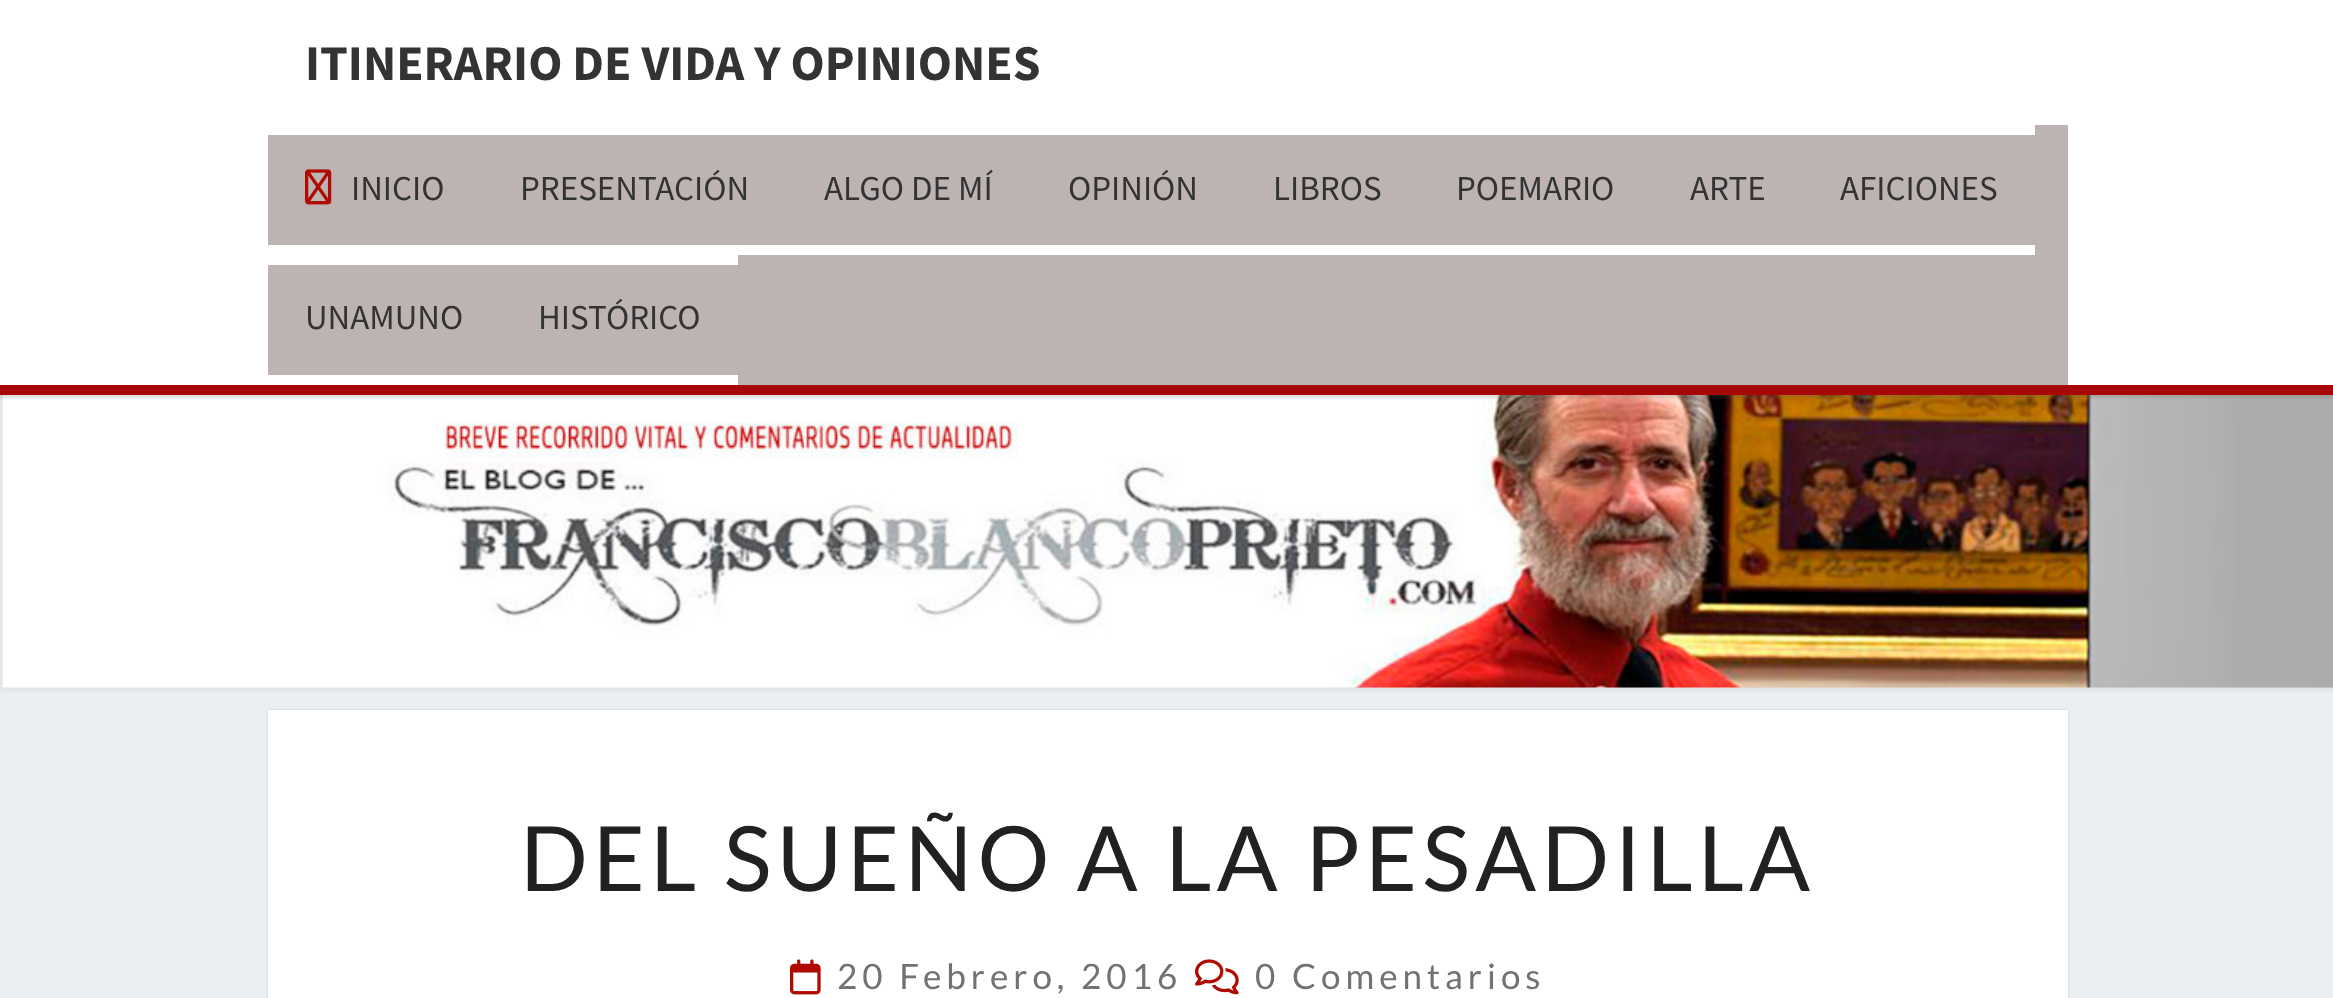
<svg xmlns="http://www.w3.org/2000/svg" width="2333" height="998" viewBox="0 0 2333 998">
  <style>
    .t1 { font: bold 50px Source Sans Pro; fill: #333; }
    .t2 { font: 35px Source Sans Pro; fill: #333; }
    .t3 { font: 90px Lato; letter-spacing: 5px; fill: #212121; }
    .t4 { font: 35px Lato; letter-spacing: 5px; fill: #727272; }
  </style>
  <rect width="100%" height="100%" fill="#eceff1"/>
  <rect x="0" y="385" width="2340" height="305" fill="#b6b6b64d" filter="blur(2.5px)"/>
  <image x="2" y="395" width="2331" height="293" href="images/2.png"/>
  <rect x="0" y="3" width="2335" height="395" fill="#64646433" filter="blur(1px)"/>
  <rect x="0" y="0" width="2333" height="385" fill="#fff"/>
  <rect x="0" y="385" width="2333" height="10" fill="#a80707"/>
  <text x="305" y="80" class="t1">ITINERARIO DE VIDA Y OPINIONES</text>
  <rect x="268" y="125" width="1800" height="260" fill="#bdb3b3"/>
  <rect x="268" y="125" width="1767" height="10" fill="#fff"/>
  <rect x="268" y="245" width="1767" height="10" fill="#fff"/>
  <image x="305" y="169" width="27" height="36" href="images/1.png"/>
  <text x="351" y="200" class="t2">INICIO</text>
  <text x="520" y="200" class="t2">PRESENTACIÓN</text>
  <text x="824" y="200" class="t2">ALGO DE MÍ</text>
  <text x="1068" y="200" class="t2">OPINIÓN</text>
  <text x="1273" y="200" class="t2">LIBROS</text>
  <text x="1456" y="200" class="t2">POEMARIO</text>
  <text x="1690" y="200" class="t2">ARTE</text>
  <text x="1840" y="200" class="t2">AFICIONES</text>
  <rect x="268" y="255" width="470" height="10" fill="#fff"/>
  <rect x="268" y="375" width="470" height="10" fill="#fff"/>
  <text x="305" y="329" class="t2">UNAMUNO</text>
  <text x="538" y="329" class="t2">HISTÓRICO</text>
  <rect x="268" y="710" width="1800" height="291" fill="#00000026" filter="blur(1px)"/>
  <rect x="268" y="710" width="1800" height="288" fill="#fff"/>
  <text x="520" y="891" class="t3">DEL SUEÑO A LA PESADILLA</text>
  <image x="790" y="959" width="31" height="36" href="images/3.png"/>
  <text x="837" y="989" class="t4">20 Febrero, 2016</text>
  <image x="1195" y="959" width="44" height="36" href="images/4.png"/>
  <text x="1255" y="989" class="t4">0 Comentarios</text>
</svg>
